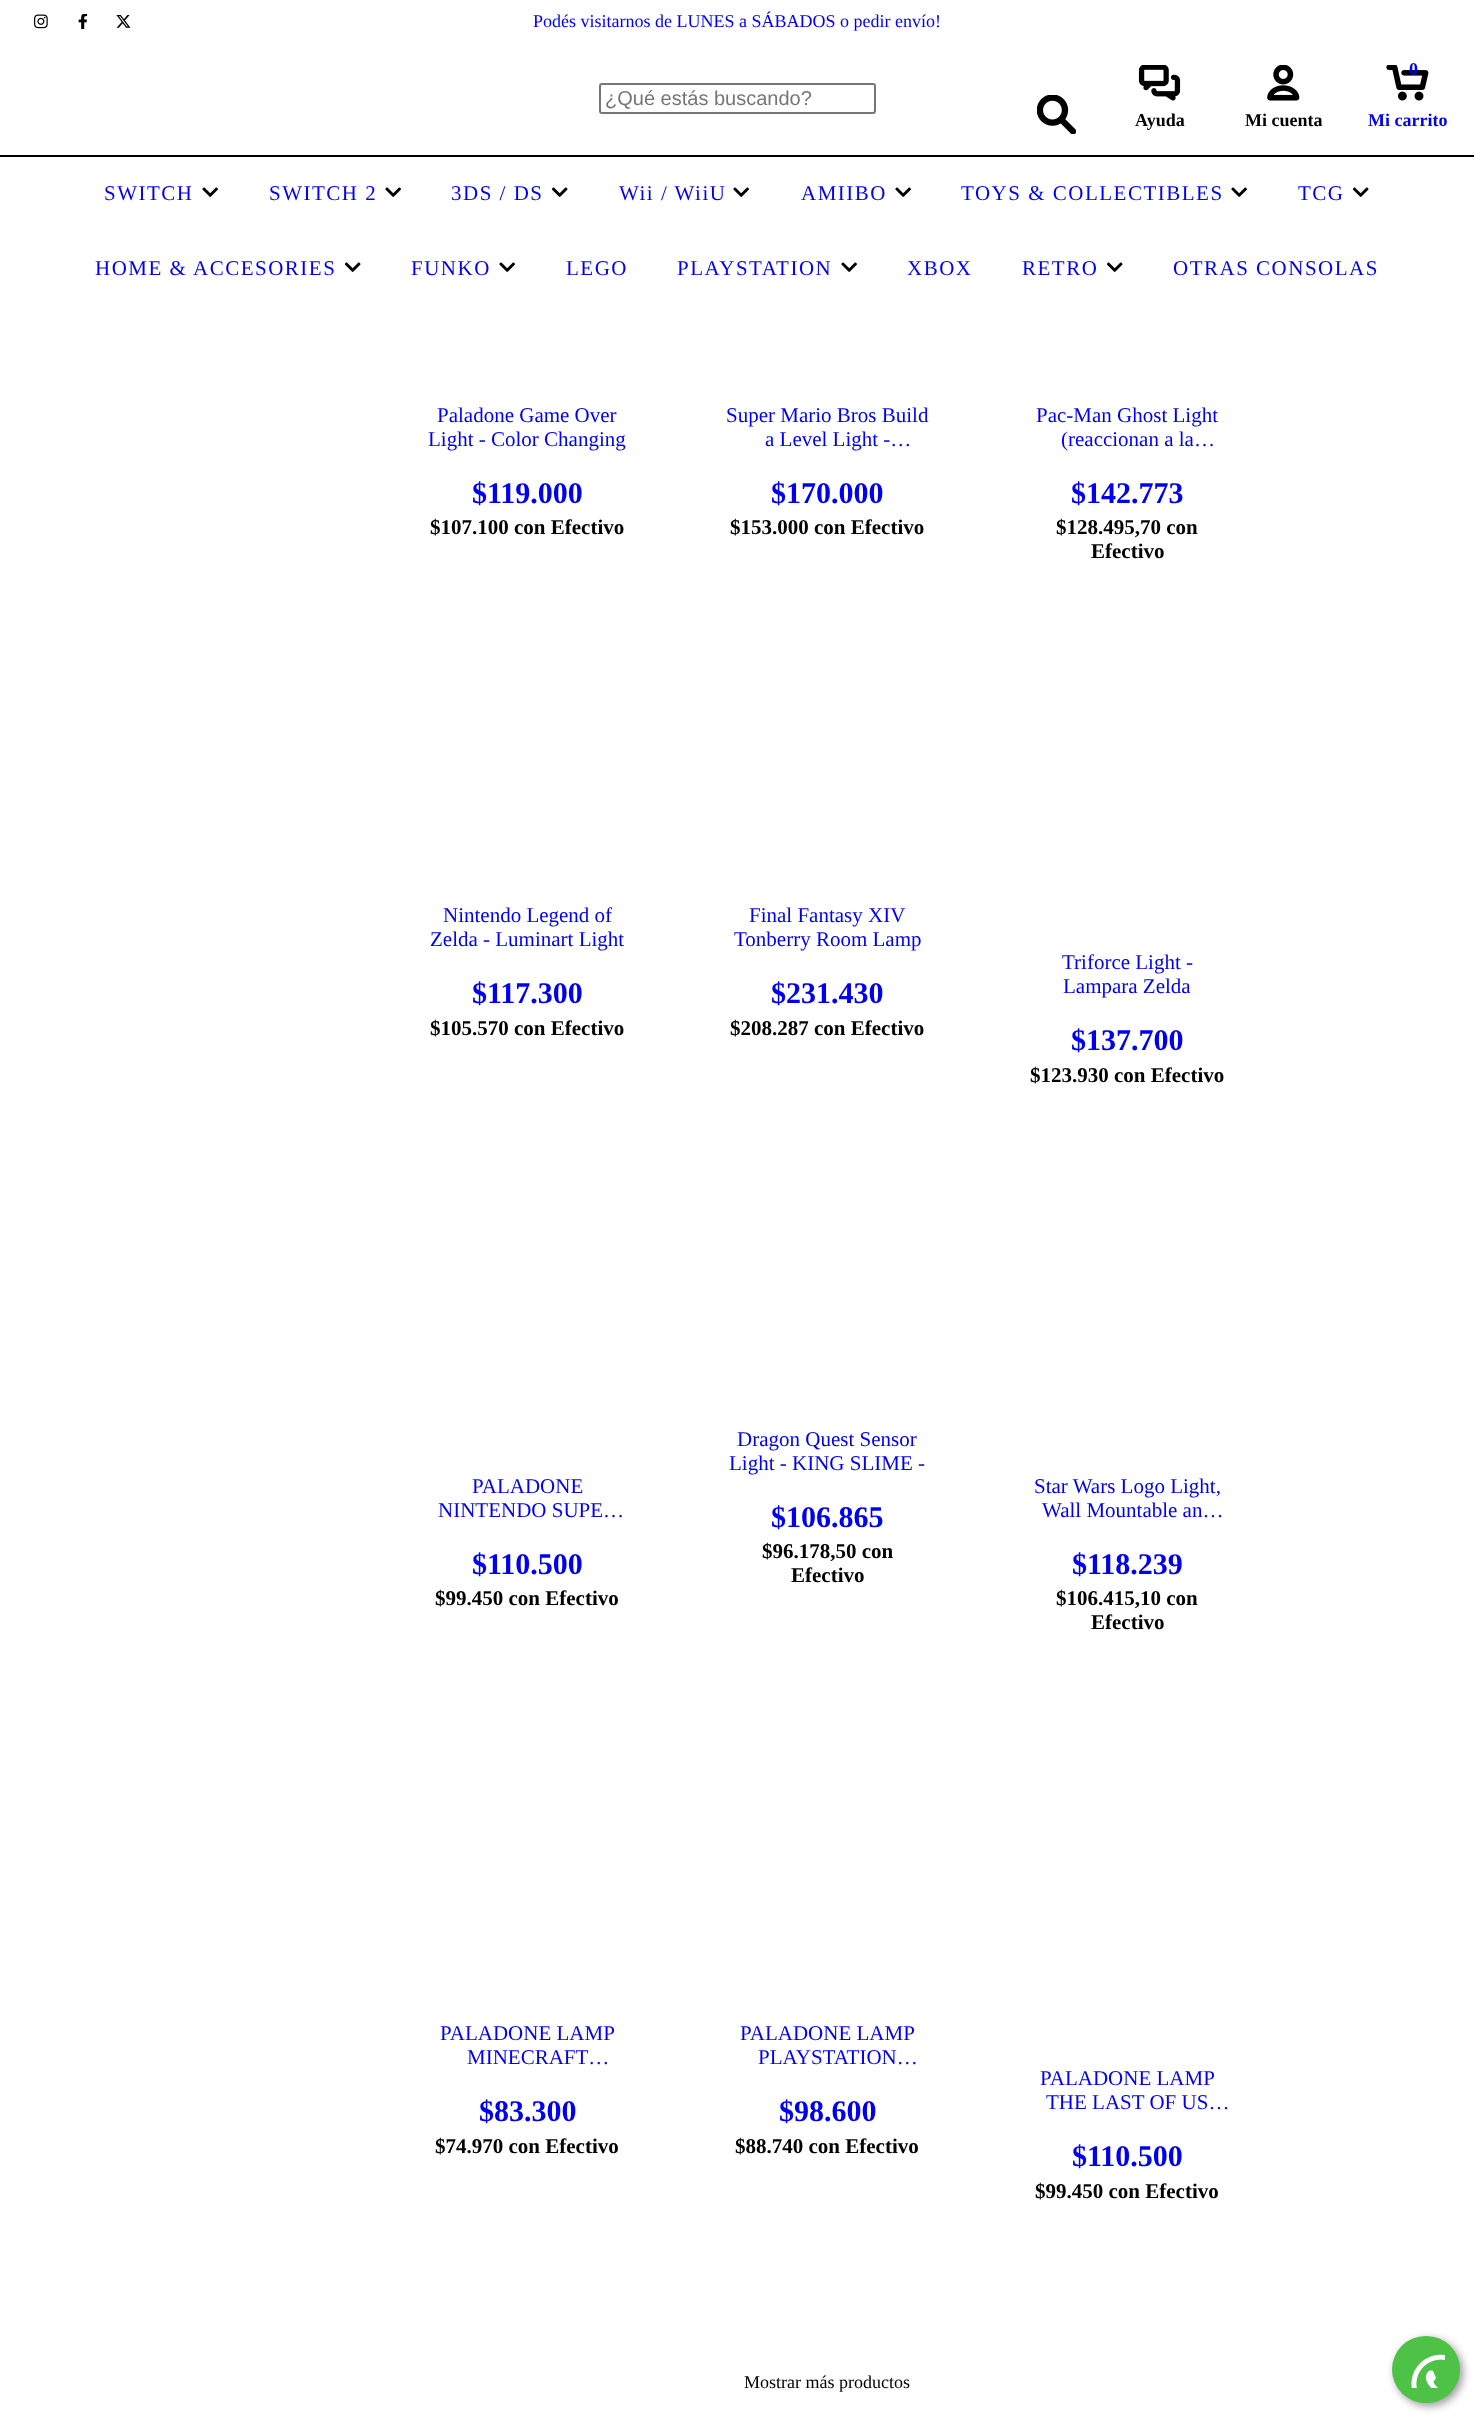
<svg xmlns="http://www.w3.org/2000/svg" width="1474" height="2417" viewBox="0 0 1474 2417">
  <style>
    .t1 { font: 18px Liberation Serif; fill: #00e; }
    .t2 { font: 20px Liberation Sans; fill: #757575; }
    .t3 { font: bold 18px Liberation Serif; fill: #000; }
    .t4 { font: bold 18px Liberation Serif; fill: #00e; }
    .t5 { font: 21px Liberation Serif; letter-spacing: 1.5px; fill: #00e; }
    .t6 { font: 21px Liberation Serif; fill: #00e; }
    .t7 { font: bold 30px Liberation Serif; fill: #00e; }
    .t8 { font: bold 21px Liberation Serif; fill: #000; }
    .t9 { font: 18px Liberation Serif; fill: #000; }
  </style>
  <rect width="100%" height="100%" fill="#fff"/>
  <image x="34" y="14" width="14" height="15" href="images/1.png"/>
  <image x="78" y="14" width="10" height="15" href="images/2.png"/>
  <image x="116" y="15" width="15" height="13" href="images/3.png"/>
  <text x="533" y="27" class="t1">Podés visitarnos de LUNES a SÁBADOS o pedir envío!</text>
  <rect x="600" y="84" width="275" height="29" rx="2" fill="none" stroke="#767676" stroke-width="2"/>
  <text x="605" y="105" class="t2">¿Qué estás buscando?</text>
  <image x="1037" y="95" width="39" height="39" href="images/4.png"/>
  <image x="1138" y="65" width="43" height="36" href="images/5.png"/>
  <text x="1135" y="126" class="t3">Ayuda</text>
  <image x="1267" y="65" width="33" height="36" href="images/6.png"/>
  <text x="1245" y="126" class="t3">Mi cuenta</text>
  <image x="1386" y="65" width="43" height="36" href="images/7.png"/>
  <text x="1409" y="75" class="t4">0</text>
  <text x="1368" y="126" class="t4">Mi carrito</text>
  <rect x="0" y="155" width="1474" height="2" fill="#000"/>
  <text x="104" y="200" class="t5">SWITCH</text>
  <image x="202" y="187" width="16" height="10" href="images/8.png"/>
  <text x="269" y="200" class="t5">SWITCH 2</text>
  <image x="385" y="187" width="16" height="10" href="images/8.png"/>
  <text x="451" y="200" class="t5">3DS / DS</text>
  <image x="551" y="187" width="17" height="10" href="images/9.png"/>
  <text x="619" y="200" class="t5">Wii / WiiU</text>
  <image x="733" y="187" width="16" height="10" href="images/8.png"/>
  <text x="801" y="200" class="t5">AMIIBO</text>
  <image x="895" y="187" width="16" height="10" href="images/8.png"/>
  <text x="961" y="200" class="t5">TOYS &amp; COLLECTIBLES</text>
  <image x="1231" y="187" width="16" height="10" href="images/8.png"/>
  <text x="1298" y="200" class="t5">TCG</text>
  <image x="1352" y="187" width="17" height="10" href="images/9.png"/>
  <text x="95" y="275" class="t5">HOME &amp; ACCESORIES</text>
  <image x="344" y="262" width="17" height="10" href="images/9.png"/>
  <text x="411" y="275" class="t5">FUNKO</text>
  <image x="499" y="262" width="16" height="10" href="images/8.png"/>
  <text x="566" y="275" class="t5">LEGO</text>
  <text x="677" y="275" class="t5">PLAYSTATION</text>
  <image x="841" y="262" width="16" height="10" href="images/8.png"/>
  <text x="907" y="275" class="t5">XBOX</text>
  <text x="1022" y="275" class="t5">RETRO</text>
  <image x="1106" y="262" width="17" height="10" href="images/9.png"/>
  <text x="1173" y="275" class="t5">OTRAS CONSOLAS</text>
  <text x="437" y="422" class="t6">Paladone Game Over</text>
  <text x="428" y="446" class="t6">Light - Color Changing</text>
  <text x="472" y="503" class="t7">$119.000</text>
  <text x="430" y="534" class="t8">$107.100 con Efectivo</text>
  <text x="726" y="422" class="t6">Super Mario Bros Build</text>
  <text x="765" y="446" class="t6">a Level Light -…</text>
  <text x="771" y="503" class="t7">$170.000</text>
  <text x="730" y="534" class="t8">$153.000 con Efectivo</text>
  <text x="1036" y="422" class="t6">Pac-Man Ghost Light</text>
  <text x="1061" y="446" class="t6">(reaccionan a la…</text>
  <text x="1071" y="503" class="t7">$142.773</text>
  <text x="1056" y="534" class="t8">$128.495,70 con</text>
  <text x="1091" y="558" class="t8">Efectivo</text>
  <text x="443" y="922" class="t6">Nintendo Legend of</text>
  <text x="430" y="946" class="t6">Zelda - Luminart Light</text>
  <text x="472" y="1003" class="t7">$117.300</text>
  <text x="430" y="1035" class="t8">$105.570 con Efectivo</text>
  <text x="749" y="922" class="t6">Final Fantasy XIV</text>
  <text x="734" y="946" class="t6">Tonberry Room Lamp</text>
  <text x="771" y="1003" class="t7">$231.430</text>
  <text x="730" y="1035" class="t8">$208.287 con Efectivo</text>
  <text x="1062" y="969" class="t6">Triforce Light -</text>
  <text x="1063" y="993" class="t6">Lampara Zelda</text>
  <text x="1071" y="1050" class="t7">$137.700</text>
  <text x="1030" y="1082" class="t8">$123.930 con Efectivo</text>
  <text x="472" y="1493" class="t6">PALADONE</text>
  <text x="438" y="1517" class="t6">NINTENDO SUPE…</text>
  <text x="472" y="1574" class="t7">$110.500</text>
  <text x="435" y="1605" class="t8">$99.450 con Efectivo</text>
  <text x="737" y="1446" class="t6">Dragon Quest Sensor</text>
  <text x="729" y="1470" class="t6">Light - KING SLIME -</text>
  <text x="771" y="1527" class="t7">$106.865</text>
  <text x="762" y="1558" class="t8">$96.178,50 con</text>
  <text x="791" y="1582" class="t8">Efectivo</text>
  <text x="1034" y="1493" class="t6">Star Wars Logo Light,</text>
  <text x="1042" y="1517" class="t6">Wall Mountable an…</text>
  <text x="1072" y="1574" class="t7">$118.239</text>
  <text x="1056" y="1605" class="t8">$106.415,10 con</text>
  <text x="1091" y="1629" class="t8">Efectivo</text>
  <text x="440" y="2040" class="t6">PALADONE LAMP</text>
  <text x="467" y="2064" class="t6">MINECRAFT…</text>
  <text x="479" y="2121" class="t7">$83.300</text>
  <text x="435" y="2153" class="t8">$74.970 con Efectivo</text>
  <text x="740" y="2040" class="t6">PALADONE LAMP</text>
  <text x="758" y="2064" class="t6">PLAYSTATION…</text>
  <text x="779" y="2121" class="t7">$98.600</text>
  <text x="735" y="2153" class="t8">$88.740 con Efectivo</text>
  <text x="1040" y="2085" class="t6">PALADONE LAMP</text>
  <text x="1046" y="2109" class="t6">THE LAST OF US…</text>
  <text x="1072" y="2166" class="t7">$110.500</text>
  <text x="1035" y="2198" class="t8">$99.450 con Efectivo</text>
  <text x="744" y="2388" class="t9">Mostrar más productos</text>
  <rect x="1395" y="2339" width="68" height="67" rx="33.5" fill="#00000066" filter="blur(4.5px)"/>
  <rect x="1392" y="2336" width="68" height="67" rx="33.5" fill="#4dc247"/>
  <image x="1411" y="2354" width="34" height="34" href="images/10.png"/>
</svg>
